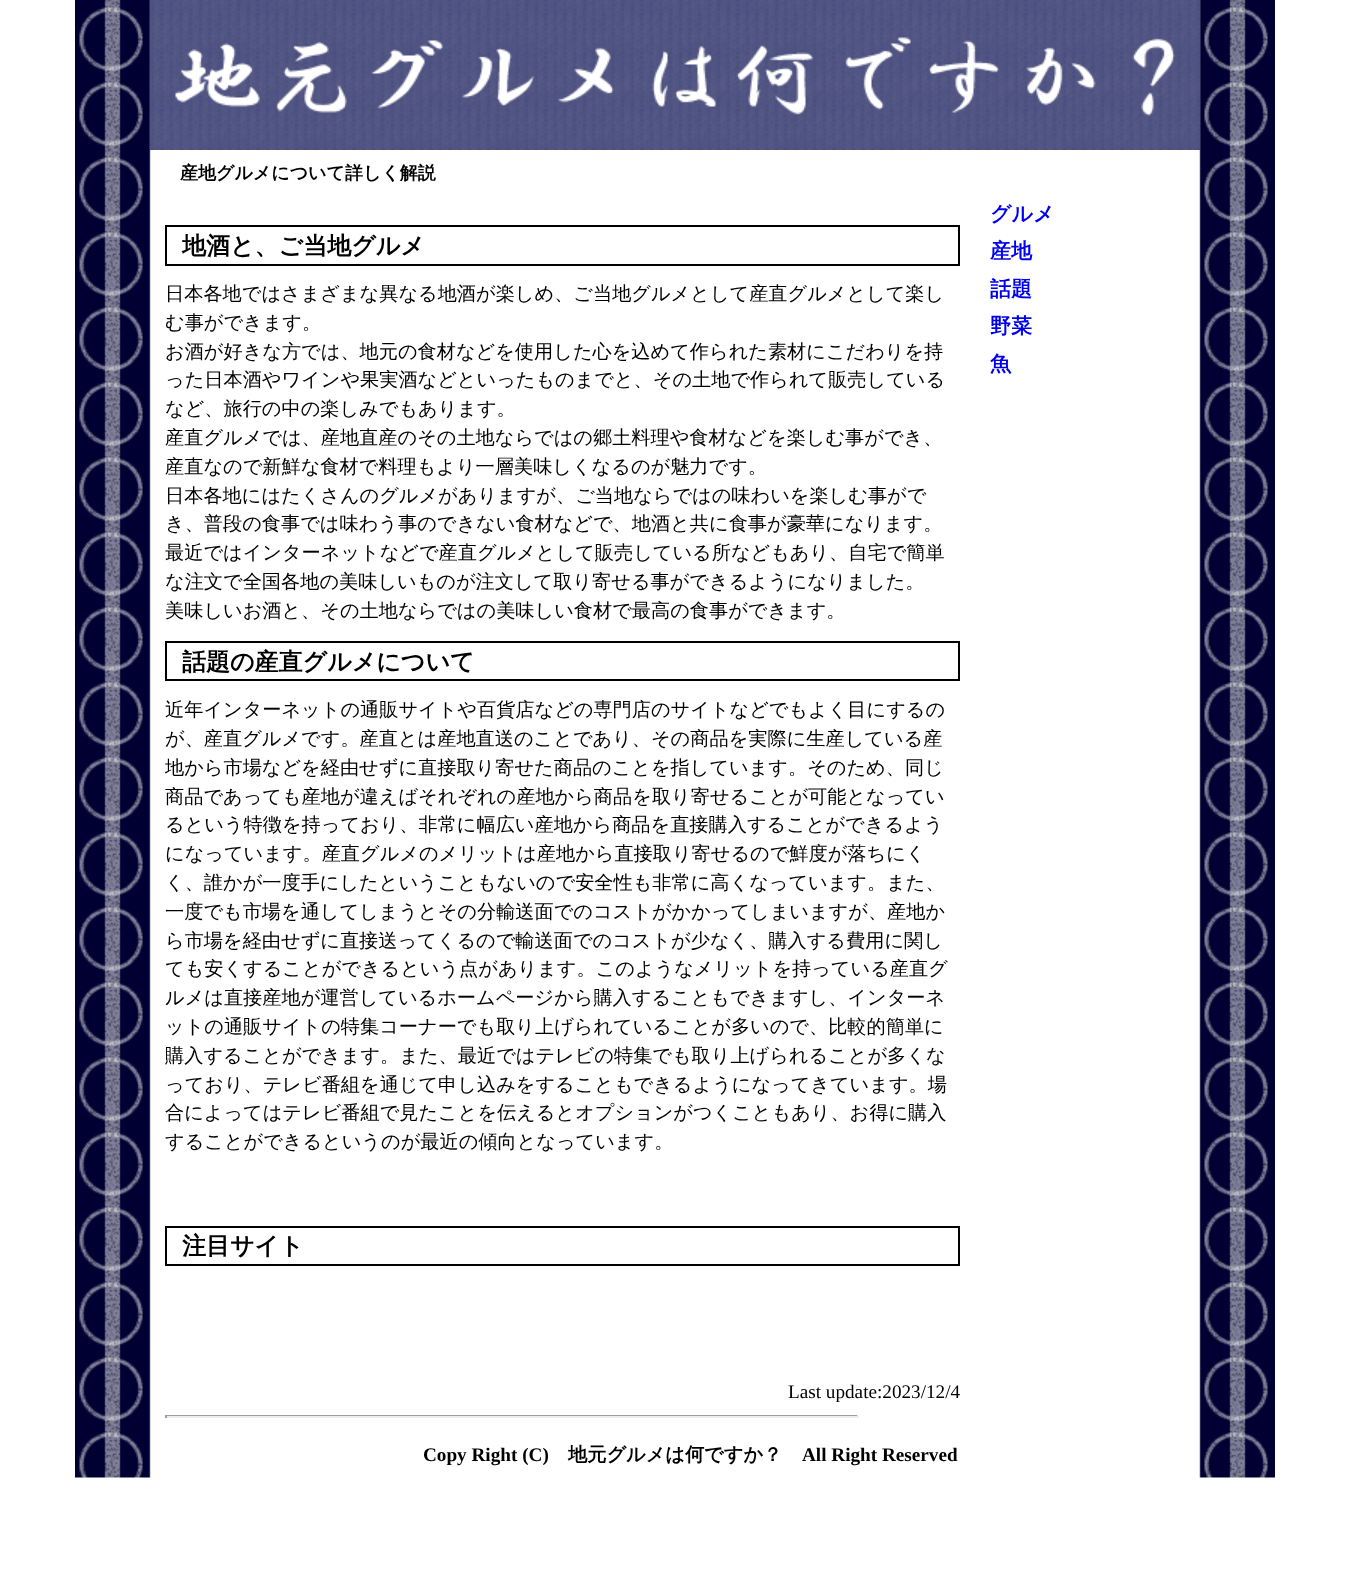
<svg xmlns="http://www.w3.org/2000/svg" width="1350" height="1596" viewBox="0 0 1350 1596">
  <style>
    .t1 { font: bold 18px WenQuanYi Zen Hei; fill: #000; }
    .t2 { font: bold 24px WenQuanYi Zen Hei; fill: #000; }
    .t3 { font: 500 19.2px WenQuanYi Zen Hei; fill: #000; }
    .t4 { font: 19.2px Liberation Serif; fill: #000; }
    .t5 { font: bold 21px WenQuanYi Zen Hei; fill: #00e; }
    .t6 { font: bold 19.2px Liberation Serif; fill: #000; }
    .t7 { font: bold 19.2px WenQuanYi Zen Hei; fill: #000; }
  </style>
  <rect width="100%" height="100%" fill="#fff"/>
  <image x="75" y="0" width="1200" height="1478" href="images/1.png"/>
  <image x="150" y="0" width="1050" height="150" href="images/2.png"/>
  <text x="180" y="179" class="t1">産地グルメについて詳しく解説</text>
  <rect x="166" y="226" width="793" height="39" fill="none" stroke="#000" stroke-width="2"/>
  <text x="182" y="254" class="t2">地酒と、ご当地グルメ</text>
  <text x="165" y="300" class="t3">日本各地ではさまざまな異なる地酒が楽しめ、ご当地グルメとして産直グルメとして楽し</text>
  <text x="165" y="329" class="t3">む事ができます。</text>
  <text x="165" y="358" class="t3">お酒が好きな方では、地元の食材などを使用した心を込めて作られた素材にこだわりを持</text>
  <text x="165" y="386" class="t3">った日本酒やワインや果実酒などといったものまでと、その土地で作られて販売している</text>
  <text x="165" y="415" class="t3">など、旅行の中の楽しみでもあります。</text>
  <text x="165" y="444" class="t3">産直グルメでは、産地直産のその土地ならではの郷土料理や食材などを楽しむ事ができ、</text>
  <text x="165" y="473" class="t3">産直なので新鮮な食材で料理もより一層美味しくなるのが魅力です。</text>
  <text x="165" y="502" class="t3">日本各地にはたくさんのグルメがありますが、ご当地ならではの味わいを楽しむ事がで</text>
  <text x="165" y="530" class="t3">き、普段の食事では味わう事のできない食材などで、地酒と共に食事が豪華になります。</text>
  <text x="165" y="559" class="t3">最近ではインターネットなどで産直グルメとして販売している所などもあり、自宅で簡単</text>
  <text x="165" y="588" class="t3">な注文で全国各地の美味しいものが注文して取り寄せる事ができるようになりました。</text>
  <text x="165" y="617" class="t3">美味しいお酒と、その土地ならではの美味しい食材で最高の食事ができます。</text>
  <rect x="166" y="642" width="793" height="38" fill="none" stroke="#000" stroke-width="2"/>
  <text x="182" y="670" class="t2">話題の産直グルメについて</text>
  <text x="165" y="716" class="t3">近年インターネットの通販サイトや百貨店などの専門店のサイトなどでもよく目にするの</text>
  <text x="165" y="745" class="t3">が、産直グルメです。産直とは産地直送のことであり、その商品を実際に生産している産</text>
  <text x="165" y="774" class="t3">地から市場などを経由せずに直接取り寄せた商品のことを指しています。そのため、同じ</text>
  <text x="165" y="803" class="t3">商品であっても産地が違えばそれぞれの産地から商品を取り寄せることが可能となってい</text>
  <text x="165" y="831" class="t3">るという特徴を持っており、非常に幅広い産地から商品を直接購入することができるよう</text>
  <text x="165" y="860" class="t3">になっています。産直グルメのメリットは産地から直接取り寄せるので鮮度が落ちにく</text>
  <text x="165" y="889" class="t3">く、誰かが一度手にしたということもないので安全性も非常に高くなっています。また、</text>
  <text x="165" y="918" class="t3">一度でも市場を通してしまうとその分輸送面でのコストがかかってしまいますが、産地か</text>
  <text x="165" y="947" class="t3">ら市場を経由せずに直接送ってくるので輸送面でのコストが少なく、購入する費用に関し</text>
  <text x="165" y="975" class="t3">ても安くすることができるという点があります。このようなメリットを持っている産直グ</text>
  <text x="165" y="1004" class="t3">ルメは直接産地が運営しているホームページから購入することもできますし、インターネ</text>
  <text x="165" y="1033" class="t3">ットの通販サイトの特集コーナーでも取り上げられていることが多いので、比較的簡単に</text>
  <text x="165" y="1062" class="t3">購入することができます。また、最近ではテレビの特集でも取り上げられることが多くな</text>
  <text x="165" y="1091" class="t3">っており、テレビ番組を通じて申し込みをすることもできるようになってきています。場</text>
  <text x="165" y="1119" class="t3">合によってはテレビ番組で見たことを伝えるとオプションがつくこともあり、お得に購入</text>
  <text x="165" y="1148" class="t3">することができるというのが最近の傾向となっています。</text>
  <rect x="166" y="1227" width="793" height="38" fill="none" stroke="#000" stroke-width="2"/>
  <text x="182" y="1254" class="t2">注目サイト</text>
  <text x="788" y="1398" class="t4">Last update:2023/12/4</text>
  <rect x="165" y="1415" width="693" height="1" fill="#9f9f9f"/>
  <rect x="857" y="1415" width="2" height="3" fill="#eee"/>
  <rect x="165" y="1416" width="693" height="2" fill="#eee"/>
  <rect x="165" y="1415" width="2" height="3" fill="#9f9f9f"/>
  <text x="990" y="221" class="t5">グルメ</text>
  <text x="990" y="258" class="t5">産地</text>
  <text x="990" y="296" class="t5">話題</text>
  <text x="990" y="333" class="t5">野菜</text>
  <text x="990" y="371" class="t5">魚</text>
  <text x="423" y="1461" class="t6">Copy Right (C)</text>
  <text x="568" y="1461" class="t7">地元グルメは何ですか？</text>
  <text x="802" y="1461" class="t6">All Right Reserved</text>
</svg>
